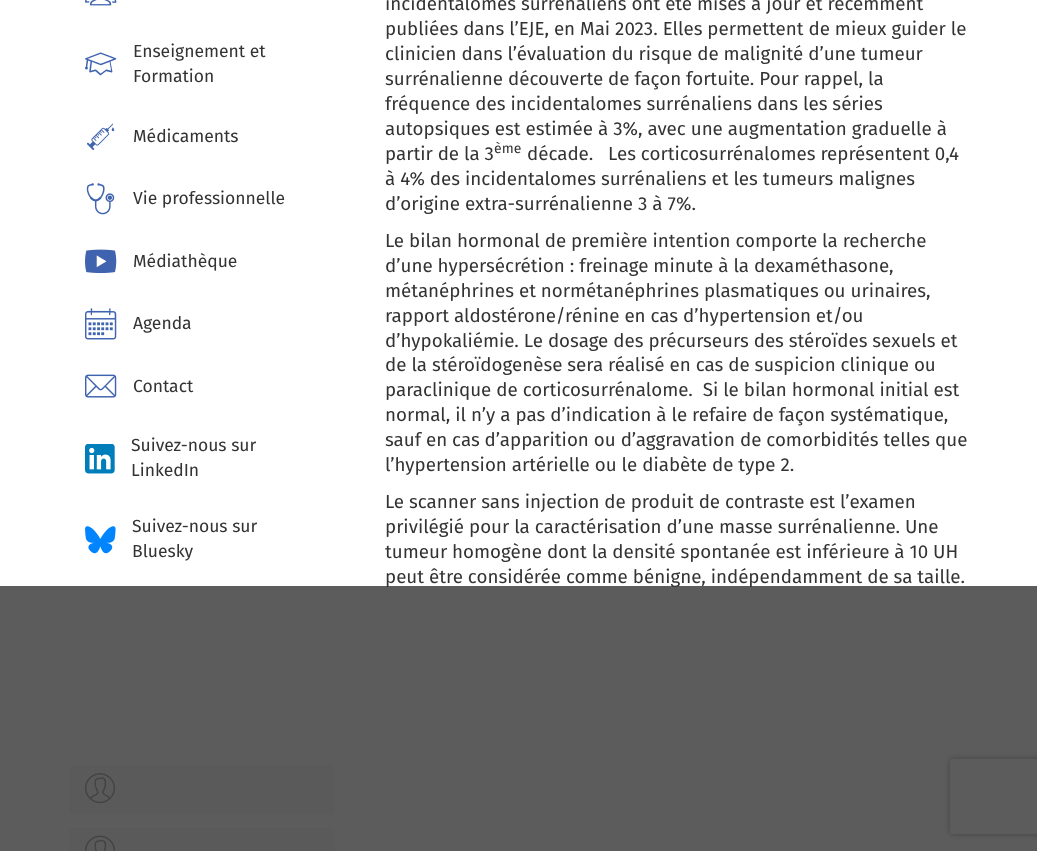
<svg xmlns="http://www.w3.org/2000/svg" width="1037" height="851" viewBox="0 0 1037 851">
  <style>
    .t1 { font: 17.5px Fira Sans; fill: #333; }
    .t2 { font: 18.75px Fira Sans; fill: #333; }
    .t3 { font: 14px Fira Sans; fill: #333; }
  </style>
  <defs>
    <clipPath id="clip1"><path d="M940 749H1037V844H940ZM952.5 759H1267.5C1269 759 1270 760 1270 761.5V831.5C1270 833 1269 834 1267.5 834H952.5C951 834 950 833 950 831.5V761.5C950 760 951 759 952.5 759Z" clip-rule="evenodd"/></clipPath>
  </defs>
  <rect width="100%" height="100%" fill="#fff"/>
  <image x="85" y="0" width="32" height="6" href="images/1.png"/>
  <image x="85" y="52" width="32" height="24" href="images/2.png"/>
  <text x="133" y="57" class="t1">Enseignement et</text>
  <text x="133" y="82" class="t1">Formation</text>
  <image x="87" y="123" width="28" height="27" href="images/3.png"/>
  <text x="133" y="142" class="t1">Médicaments</text>
  <image x="86" y="183" width="29" height="32" href="images/4.png"/>
  <text x="133" y="204" class="t1">Vie professionnelle</text>
  <image x="85" y="249" width="32" height="25" href="images/5.png"/>
  <text x="133" y="267" class="t1">Médiathèque</text>
  <image x="85" y="308" width="32" height="32" href="images/6.png"/>
  <text x="133" y="329" class="t1">Agenda</text>
  <image x="85" y="374" width="32" height="24" href="images/7.png"/>
  <text x="133" y="392" class="t1">Contact</text>
  <image x="85" y="444" width="30" height="30" href="images/8.png"/>
  <text x="131" y="451" class="t1">Suivez-nous sur</text>
  <text x="131" y="476" class="t1">LinkedIn</text>
  <image x="85" y="526" width="31" height="28" href="images/9.png"/>
  <text x="132" y="532" class="t1">Suivez-nous sur</text>
  <text x="132" y="557" class="t1">Bluesky</text>
  <path d="M74 765H130V815H74C71 815 69 813 69 810V770C69 767 71 765 74 765Z" fill="#f2f2f2"/>
  <image x="85" y="773" width="30" height="31" href="images/10.png"/>
  <path d="M130 765H330C333 765 335 767 335 770V810C335 813 333 815 330 815H130Z" fill="#f2f2f2"/>
  <path d="M74 828H130V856H74C71 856 69 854 69 851V833C69 830 71 828 74 828Z" fill="#f2f2f2"/>
  <image x="85" y="835" width="30" height="16" href="images/11.png"/>
  <path d="M130 828H330C333 828 335 830 335 833V851C335 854 333 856 330 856H130Z" fill="#f2f2f2"/>
  <text x="385" y="10" class="t2">incidentalomes surrénaliens ont été mises à jour et récemment</text>
  <text x="385" y="35" class="t2">publiées dans l’EJE, en Mai 2023. Elles permettent de mieux guider le</text>
  <text x="385" y="60" class="t2">clinicien dans l’évaluation du risque de malignité d’une tumeur</text>
  <text x="385" y="85" class="t2">surrénalienne découverte de façon fortuite. Pour rappel, la</text>
  <text x="385" y="110" class="t2">fréquence des incidentalomes surrénaliens dans les séries</text>
  <text x="385" y="135" class="t2">autopsiques est estimée à 3%, avec une augmentation graduelle à</text>
  <text x="385" y="160" class="t2">partir de la 3</text>
  <text x="494" y="153" class="t3">ème</text>
  <text x="527" y="160" class="t2" xml:space="preserve">décade.   Les corticosurrénalomes représentent 0,4</text>
  <text x="385" y="185" class="t2">à 4% des incidentalomes surrénaliens et les tumeurs malignes</text>
  <text x="385" y="210" class="t2">d’origine extra-surrénalienne 3 à 7%.</text>
  <text x="385" y="247" class="t2">Le bilan hormonal de première intention comporte la recherche</text>
  <text x="385" y="272" class="t2">d’une hypersécrétion : freinage minute à la dexaméthasone,</text>
  <text x="385" y="297" class="t2">métanéphrines et normétanéphrines plasmatiques ou urinaires,</text>
  <text x="385" y="322" class="t2">rapport aldostérone/rénine en cas d’hypertension et/ou</text>
  <text x="385" y="347" class="t2">d’hypokaliémie. Le dosage des précurseurs des stéroïdes sexuels et</text>
  <text x="385" y="371" class="t2">de la stéroïdogenèse sera réalisé en cas de suspicion clinique ou</text>
  <text x="385" y="396" class="t2" xml:space="preserve">paraclinique de corticosurrénalome.  Si le bilan hormonal initial est</text>
  <text x="385" y="421" class="t2">normal, il n’y a pas d’indication à le refaire de façon systématique,</text>
  <text x="385" y="446" class="t2">sauf en cas d’apparition ou d’aggravation de comorbidités telles que</text>
  <text x="385" y="471" class="t2">l’hypertension artérielle ou le diabète de type 2.</text>
  <text x="385" y="508" class="t2">Le scanner sans injection de produit de contraste est l’examen</text>
  <text x="385" y="533" class="t2">privilégié pour la caractérisation d’une masse surrénalienne. Une</text>
  <text x="385" y="558" class="t2">tumeur homogène dont la densité spontanée est inférieure à 10 UH</text>
  <text x="385" y="583" class="t2">peut être considérée comme bénigne, indépendamment de sa taille.</text>
  <g clip-path="url(#clip1)">
    <rect x="950" y="759" width="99" height="75" rx="2.5" fill="#808080" filter="blur(3px)"/>
  </g>
  <rect x="0" y="586" width="1037" height="265" fill="#333333cc"/>
</svg>
